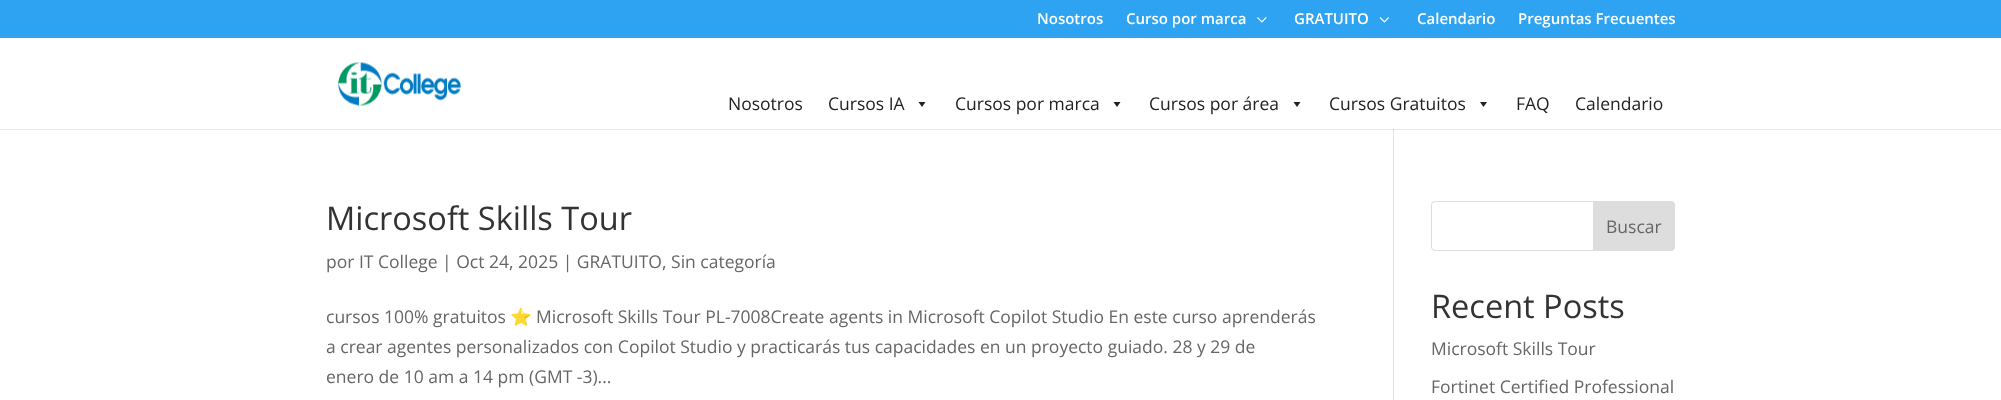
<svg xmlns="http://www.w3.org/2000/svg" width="2001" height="400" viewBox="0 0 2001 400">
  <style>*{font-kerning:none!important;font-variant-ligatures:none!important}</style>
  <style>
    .t1 { font: 600 15px Open Sans; fill: #fff; }
    .t2 { font: 17.5px Open Sans; fill: #222; }
    .t3 { font: 32.5px Open Sans; fill: #333; }
    .t4 { font: 17.5px Open Sans; fill: #666; }
    .t5 { font: 17.5px Noto Color Emoji; fill: #666; }
  </style>
  <rect width="100%" height="100%" fill="#fff"/>
  <rect x="0" y="129" width="2001" height="1" fill="#e6e6e6"/>
  <rect x="0" y="0" width="2001" height="38" fill="#2ea3f2"/>
  <text x="1037" y="24" class="t1">Nosotros</text>
  <text x="1126" y="24" class="t1">Curso por marca</text>
  <image x="1257" y="17" width="10" height="6" href="images/1.png"/>
  <text x="1294" y="24" class="t1">GRATUITO</text>
  <image x="1379" y="17" width="10" height="6" href="images/2.png"/>
  <text x="1417" y="24" class="t1">Calendario</text>
  <text x="1518" y="24" class="t1">Preguntas Frecuentes</text>
  <image x="338" y="62" width="123" height="44" href="images/3.png"/>
  <text x="728" y="110" class="t2">Nosotros</text>
  <text x="828" y="110" class="t2">Cursos IA</text>
  <path d="M925.5 102L922 107L918.5 102Z" fill="#222"/>
  <text x="955" y="110" class="t2">Cursos por marca</text>
  <path d="M1120.5 102L1117 107L1113.5 102Z" fill="#222"/>
  <text x="1149" y="110" class="t2">Cursos por área</text>
  <path d="M1300.5 102L1297 107L1293.5 102Z" fill="#222"/>
  <text x="1329" y="110" class="t2">Cursos Gratuitos</text>
  <path d="M1487 102L1483.5 107L1480 102Z" fill="#222"/>
  <text x="1516" y="110" class="t2">FAQ</text>
  <text x="1575" y="110" class="t2">Calendario</text>
  <rect x="1393" y="129" width="1" height="271" fill="#e2e2e2"/>
  <rect x="1393" y="129" width="1" height="1" fill="#cbcbcb"/>
  <text x="326" y="230" class="t3">Microsoft Skills Tour</text>
  <text x="326" y="268" class="t4">por IT College | Oct 24, 2025 | GRATUITO, Sin categoría</text>
  <text x="326" y="323" class="t4">cursos 100% gratuitos</text>
  <text x="510" y="323" class="t5">⭐</text>
  <text x="536" y="323" class="t4">Microsoft Skills Tour PL-7008Create agents in Microsoft Copilot Studio En este curso aprenderás</text>
  <text x="326" y="353" class="t4">a crear agentes personalizados con Copilot Studio y practicarás tus capacidades en un proyecto guiado.  28 y 29 de</text>
  <text x="326" y="383" class="t4">enero de 10 am a 14 pm (GMT -3)...</text>
  <rect x="1431.5" y="201.5" width="243" height="49" rx="3.5" fill="none" stroke="#ddd"/>
  <path d="M1593.5 201.5H1671C1673 201.5 1674.5 203 1674.5 205V247C1674.5 249 1673 250.5 1671 250.5H1593.5Z" fill="#ddd" stroke="#ddd"/>
  <text x="1606" y="233" class="t4">Buscar</text>
  <text x="1431" y="318" class="t3">Recent Posts</text>
  <text x="1431" y="355" class="t4">Microsoft Skills Tour</text>
  <text x="1431" y="393" class="t4">Fortinet Certified Professional</text>
</svg>
